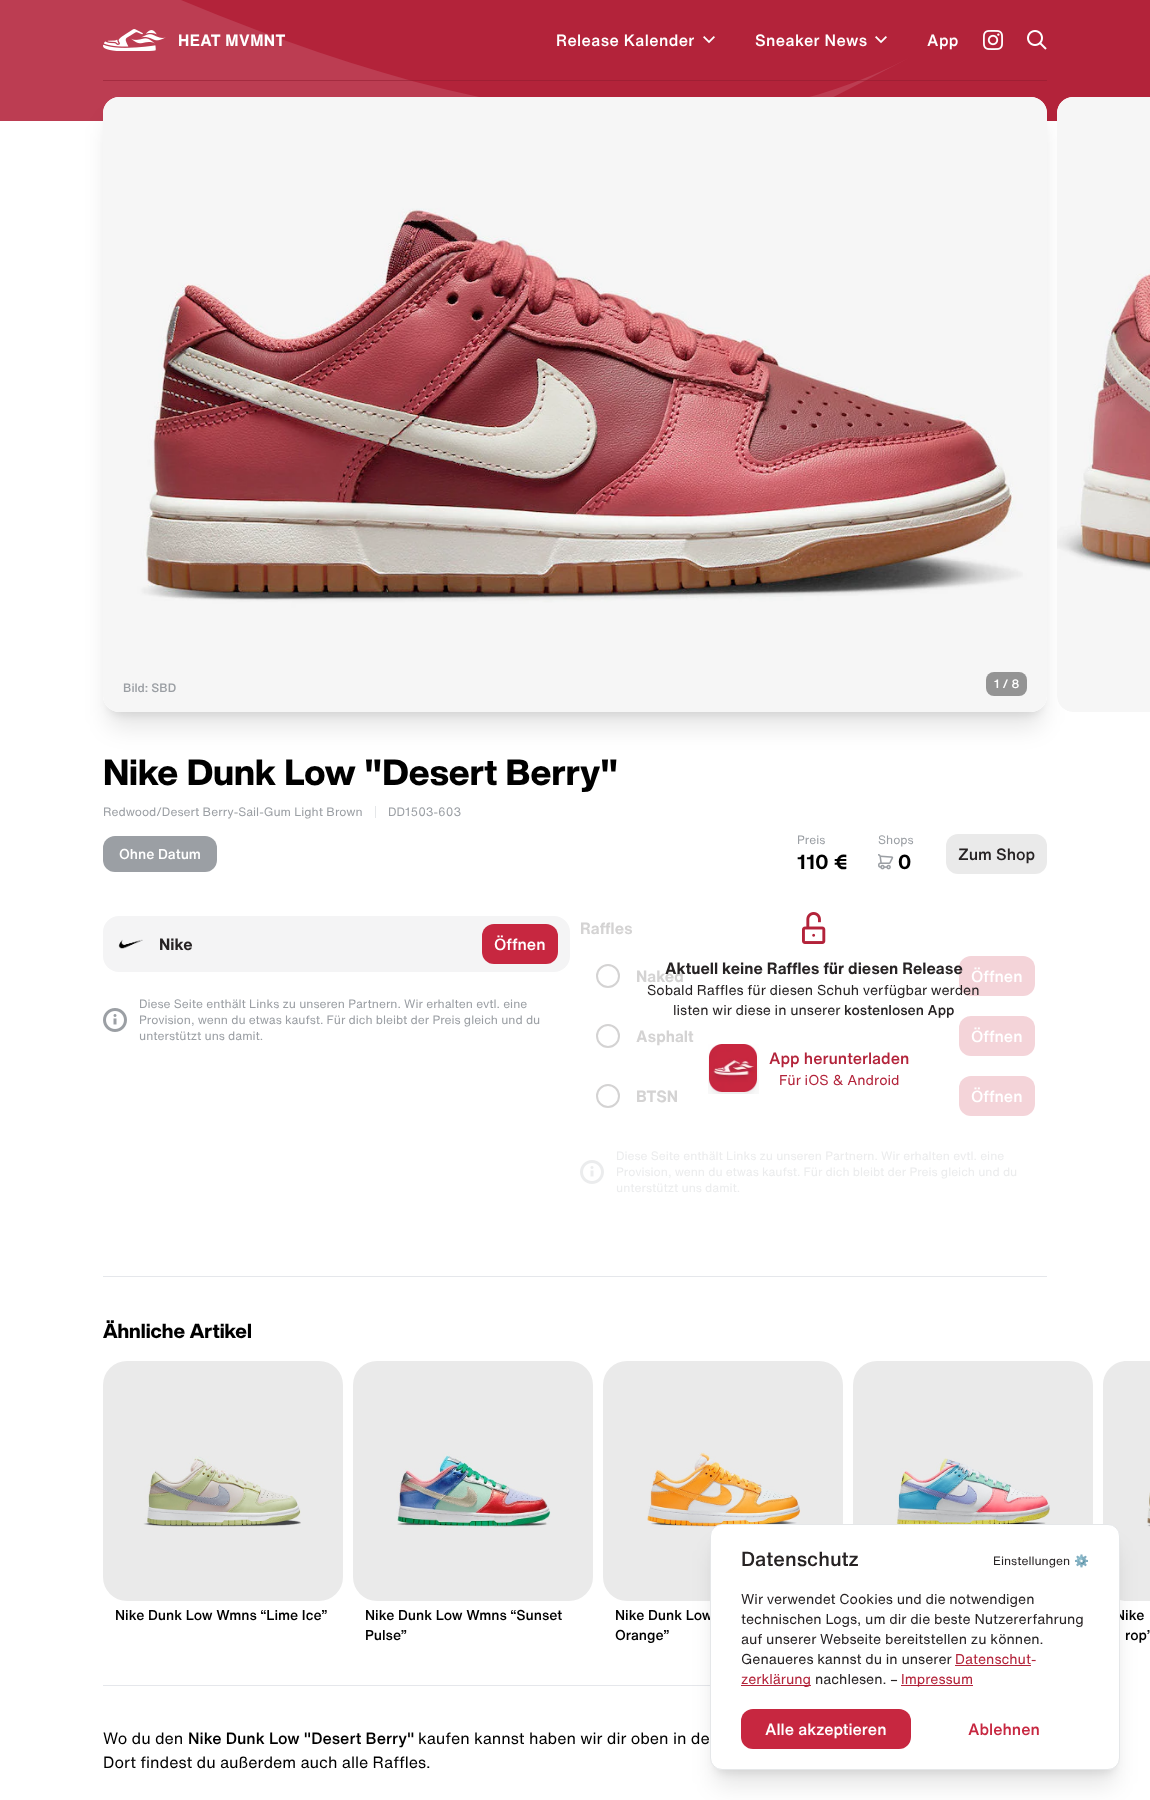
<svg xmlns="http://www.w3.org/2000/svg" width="1150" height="1800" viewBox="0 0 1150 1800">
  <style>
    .t1 { font: bold 16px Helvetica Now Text; letter-spacing: 0.4px; fill: #fff; }
    .t2 { font: 500 16px Helvetica Now Text; letter-spacing: 0.4px; fill: #fff; }
    .t3 { font: 500 12px Helvetica Now Text; fill: #9b9fa4; }
    .t4 { font: 500 12px Helvetica Now Text; fill: #fff; }
    .t5 { font: 800 36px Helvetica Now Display; fill: #000; }
    .t6 { font: 12px Helvetica Now Text; fill: #9b9fa4; }
    .t7 { font: 500 14px Helvetica Now Text; fill: #fff; }
    .t8 { font: bold 20px Helvetica Now Text; fill: #000; }
    .t9 { font: 500 16px Helvetica Now Text; fill: #272324; }
    .t10 { font: bold 16px Helvetica Now Text; fill: #272324; }
    .t11 { font: 500 16px Helvetica Now Text; fill: #fff; }
    .t12 { font: bold 16px Helvetica Now Text; fill: #d4d3d3; }
    .t13 { font: 12px Helvetica Now Text; fill: #ebeced; }
    .t14 { font: 14px Helvetica Now Text; fill: #272324; }
    .t15 { font: 500 14px Helvetica Now Text; fill: #272324; }
    .t16 { font: 500 16px Helvetica Now Text; fill: #b3233a; }
    .t17 { font: 14px Helvetica Now Text; fill: #b3233a; }
    .t18 { font: 800 20px Helvetica Now Display; fill: #000; }
    .t19 { font: 500 14px Helvetica Now Text; fill: #000; }
    .t20 { font: 16px Helvetica Now Text; fill: #000; }
    .t21 { font: 500 16px Helvetica Now Text; fill: #000; }
    .t22 { font: 500 20px Helvetica Now Text; fill: #272324; }
    .t23 { font: 12px Helvetica Now Text; fill: #272324; }
    .t24 { font: 12px Noto Color Emoji; fill: #272324; }
    .t25 { font: 500 16px Helvetica Now Text; fill: #c72740; }
  </style>
  <defs>
    <clipPath id="clip1"><rect x="0" y="0" width="909" height="121"/></clipPath>
  </defs>
  <rect width="100%" height="100%" fill="#fff"/>
  <rect x="181" y="0" width="969" height="121" fill="#b3233a"/>
  <g clip-path="url(#clip1)">
    <path d="M-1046 98C-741-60-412-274-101-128C211 18 604 217 909 58C604 217 268 389-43 243C-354 97-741-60-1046 98Z" fill="#bc3d52"/>
  </g>
  <image x="103" y="29" width="63" height="22" href="images/1.png"/>
  <text x="178" y="46" class="t1">HEAT MVMNT</text>
  <text x="556" y="46" class="t2">Release Kalender</text>
  <image x="703" y="36" width="12" height="8" href="images/2.png"/>
  <text x="755" y="46" class="t2">Sneaker News</text>
  <image x="875" y="36" width="12" height="8" href="images/2.png"/>
  <text x="927" y="46" class="t2">App</text>
  <image x="983" y="30" width="20" height="20" href="images/3.png"/>
  <image x="1027" y="30" width="20" height="20" href="images/4.png"/>
  <rect x="103" y="80" width="944" height="1" fill="#8c1c2e80"/>
  <rect x="109" y="111" width="932" height="603" rx="10" fill="#0000001a" filter="blur(5px)"/>
  <rect x="108" y="122" width="934" height="605" rx="11" fill="#0000001a" filter="blur(12.5px)"/>
  <rect x="103" y="97" width="944" height="615" rx="16" fill="#fff"/>
  <image x="103" y="97" width="944" height="615" href="images/5.png"/>
  <path d="M1073 97H1150V712H1073C1064 712 1057 705 1057 696V113C1057 104 1064 97 1073 97Z" fill="#fff"/>
  <image x="1057" y="97" width="93" height="615" href="images/6.png"/>
  <text x="123" y="692" class="t3">Bild: SBD</text>
  <rect x="986" y="672" width="41" height="24" rx="8" fill="#949494"/>
  <text x="994" y="688" class="t4">1 / 8</text>
  <text x="103" y="785" class="t5">Nike Dunk Low "Desert Berry"</text>
  <text x="103" y="816" class="t6">Redwood/Desert Berry-Sail-Gum Light Brown</text>
  <rect x="375" y="806" width="1" height="12" fill="#e5e7e9"/>
  <text x="388" y="816" class="t6">DD1503-603</text>
  <rect x="103" y="836" width="114" height="36" rx="12" fill="#9b9fa4"/>
  <text x="119" y="859" class="t7">Ohne Datum</text>
  <text x="797" y="844" class="t6">Preis</text>
  <text x="797" y="869" class="t8">110 €</text>
  <text x="878" y="844" class="t6">Shops</text>
  <image x="878" y="854" width="16" height="16" href="images/7.png"/>
  <text x="898" y="869" class="t8">0</text>
  <rect x="946" y="834" width="101" height="40" rx="12" fill="#eaeaea"/>
  <text x="958" y="860" class="t9">Zum Shop</text>
  <rect x="103" y="916" width="467" height="56" rx="16" fill="#f4f4f5"/>
  <image x="118" y="939" width="25" height="10" href="images/8.png"/>
  <text x="159" y="950" class="t10">Nike</text>
  <rect x="482" y="924" width="76" height="40" rx="12" fill="#c72740"/>
  <text x="494" y="950" class="t11">Öffnen</text>
  <image x="103" y="1008" width="24" height="24" href="images/9.png"/>
  <text x="139" y="1008" class="t6">Diese Seite enthält Links zu unseren Partnern. Wir erhalten evtl. eine</text>
  <text x="139" y="1024" class="t6">Provision, wenn du etwas kaufst. Für dich bleibt der Preis gleich und du</text>
  <text x="139" y="1040" class="t6">unterstützt uns damit.</text>
  <text x="580" y="934" class="t12">Raffles</text>
  <circle cx="608" cy="976" r="11" fill="none" stroke="#d4d3d3" stroke-width="2"/>
  <text x="636" y="982" class="t12">Naked</text>
  <rect x="959" y="956" width="76" height="40" rx="12" fill="#f4d4d9"/>
  <text x="971" y="982" class="t11">Öffnen</text>
  <circle cx="608" cy="1036" r="11" fill="none" stroke="#d4d3d3" stroke-width="2"/>
  <text x="636" y="1042" class="t12">Asphalt</text>
  <rect x="959" y="1016" width="76" height="40" rx="12" fill="#f4d4d9"/>
  <text x="971" y="1042" class="t11">Öffnen</text>
  <circle cx="608" cy="1096" r="11" fill="none" stroke="#d4d3d3" stroke-width="2"/>
  <text x="636" y="1102" class="t12">BTSN</text>
  <rect x="959" y="1076" width="76" height="40" rx="12" fill="#f4d4d9"/>
  <text x="971" y="1102" class="t11">Öffnen</text>
  <image x="580" y="1160" width="24" height="24" href="images/10.png"/>
  <text x="616" y="1160" class="t13">Diese Seite enthält Links zu unseren Partnern. Wir erhalten evtl. eine</text>
  <text x="616" y="1176" class="t13">Provision, wenn du etwas kaufst. Für dich bleibt der Preis gleich und du</text>
  <text x="616" y="1192" class="t13">unterstützt uns damit.</text>
  <image x="802" y="912" width="24" height="32" href="images/11.png"/>
  <text x="665" y="974" class="t10">Aktuell keine Raffles für diesen Release</text>
  <text x="647" y="995" class="t14">Sobald Raffles für diesen Schuh verfügbar werden</text>
  <text x="673" y="1015" class="t14">listen wir diese in unserer</text>
  <text x="844" y="1015" class="t15">kostenlosen App</text>
  <image x="708" y="1044" width="51" height="50" href="images/12.png"/>
  <text x="769" y="1064" class="t16">App herunterladen</text>
  <text x="779" y="1085" class="t17">Für iOS &amp; Android</text>
  <rect x="103" y="1276" width="944" height="1" fill="#e5e7eb"/>
  <text x="103" y="1338" class="t18">Ähnliche Artikel</text>
  <rect x="853" y="1361" width="240" height="240" rx="24" fill="#eaeaea"/>
  <image x="895" y="1458" width="155" height="66" href="images/13.png"/>
  <rect x="103" y="1361" width="240" height="240" rx="24" fill="#eaeaea"/>
  <image x="143" y="1456" width="158" height="72" href="images/14.png"/>
  <text x="115" y="1620" class="t19">Nike Dunk Low Wmns “Lime Ice”</text>
  <rect x="353" y="1361" width="240" height="240" rx="24" fill="#eaeaea"/>
  <image x="396" y="1452" width="155" height="76" href="images/15.png"/>
  <text x="365" y="1620" class="t19">Nike Dunk Low Wmns “Sunset</text>
  <text x="365" y="1640" class="t19">Pulse”</text>
  <rect x="603" y="1361" width="240" height="240" rx="24" fill="#eaeaea"/>
  <image x="646" y="1451" width="155" height="77" href="images/16.png"/>
  <text x="615" y="1620" class="t19">Nike Dunk Low</text>
  <text x="615" y="1640" class="t19">Orange”</text>
  <path d="M1127 1361H1150V1601H1127C1113.5 1601 1103 1590.5 1103 1577V1385C1103 1371.5 1113.5 1361 1127 1361Z" fill="#eaeaea"/>
  <image x="1147" y="1492" width="3" height="35" href="images/17.png"/>
  <text x="1115" y="1620" class="t19">Nike</text>
  <text x="1125" y="1640" class="t19">rop”</text>
  <rect x="103" y="1685" width="607" height="1" fill="#e5e7eb"/>
  <text x="103" y="1744" class="t20">Wo du den</text>
  <text x="188" y="1744" class="t21">Nike Dunk Low "Desert Berry"</text>
  <text x="418" y="1744" class="t20">kaufen kannst haben wir dir oben in de</text>
  <text x="103" y="1768" class="t20">Dort findest du außerdem auch alle Raffles.</text>
  <rect x="716" y="1538" width="398" height="234" rx="6" fill="#0000001a" filter="blur(5px)"/>
  <rect x="715" y="1549" width="400" height="236" rx="7" fill="#0000001a" filter="blur(12.5px)"/>
  <rect x="710.5" y="1524.5" width="409" height="245" rx="11.5" fill="#fff" stroke="#e5e7e9"/>
  <text x="741" y="1566" class="t22">Datenschutz</text>
  <text x="993" y="1565" class="t23">Einstellungen</text>
  <text x="1074" y="1565" class="t24">⚙️</text>
  <text x="741" y="1604" class="t14">Wir verwendet Cookies und die notwendigen</text>
  <text x="741" y="1624" class="t14">technischen Logs, um dir die beste Nutzererfahrung</text>
  <text x="741" y="1644" class="t14">auf unserer Webseite bereitstellen zu können.</text>
  <text x="741" y="1664" class="t14">Genaueres kannst du in unserer</text>
  <text x="955" y="1664" class="t17">Datenschut-</text>
  <rect x="955" y="1665" width="76" height="1" fill="#b3233a"/>
  <rect x="741" y="1685" width="70" height="1" fill="#b3233a"/>
  <text x="741" y="1684" class="t17">zerklärung</text>
  <text x="815" y="1684" class="t14">nachlesen. –</text>
  <rect x="901" y="1685" width="72" height="1" fill="#b3233a"/>
  <text x="901" y="1684" class="t17">Impressum</text>
  <rect x="741" y="1709" width="170" height="40" rx="12" fill="#c72740"/>
  <text x="765" y="1735" class="t11">Alle akzeptieren</text>
  <text x="968" y="1735" class="t25">Ablehnen</text>
</svg>
